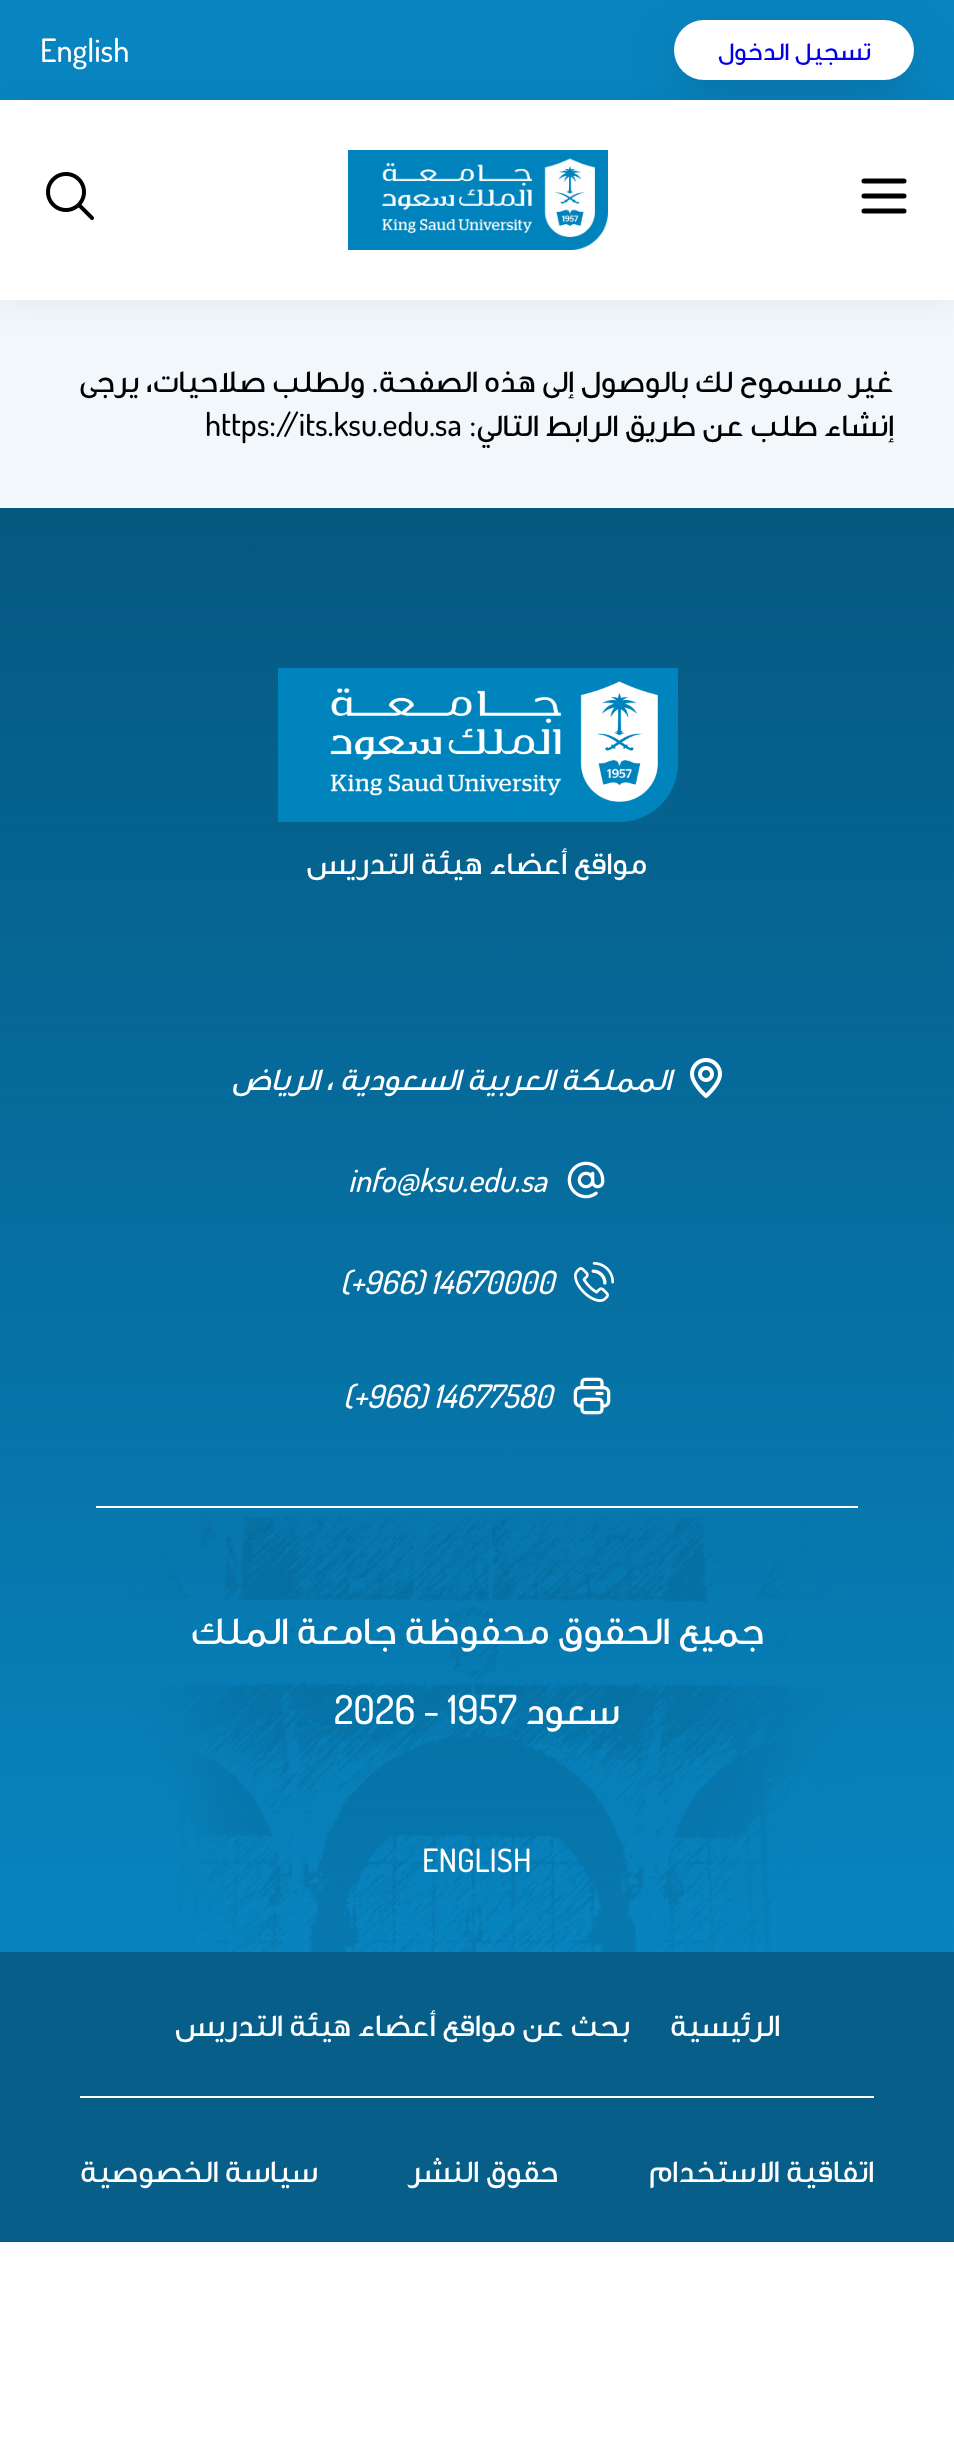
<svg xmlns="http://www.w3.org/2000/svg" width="954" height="2453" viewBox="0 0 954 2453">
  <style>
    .t1 { font: 500 26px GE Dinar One; direction: rtl; fill: #00e; }
    .t2 { font: 500 32px Dosis; fill: #fff; }
    .t3 { font: 500 32px GE Dinar One; direction: rtl; fill: #000; }
    .t4 { font: 500 32px Dosis; direction: rtl; fill: #000; }
    .t5 { font: 500 32px Dosis; fill: #000; }
    .t6 { font: 500 32px GE Dinar One; direction: rtl; fill: #fff; }
    .t7 { font: italic 500 32px GE Dinar One; direction: rtl; fill: #fff; }
    .t8 { font: italic 500 32px Dosis; fill: #fff; }
    .t9 { font: 500 40px GE Dinar One; direction: rtl; fill: #fff; }
    .t10 { font: 500 40px Dosis; fill: #fff; }
  </style>
  <rect width="100%" height="100%" fill="#fff"/>
  <rect x="0" y="300" width="954" height="208" fill="#f1f7fb"/>
  <rect x="0" y="0" width="954" height="100" fill="#0885c1"/>
  <rect x="674" y="36" width="240" height="60" rx="30" fill="#0e2a3d33" filter="blur(24px)"/>
  <rect x="674" y="20" width="240" height="60" rx="30" fill="#fff"/>
  <text x="871" y="60" word-spacing="1" class="t1">تسجيل الدخول</text>
  <text x="40" y="62" class="t2">English</text>
  <rect x="0" y="106" width="954" height="200" fill="#0000000d" filter="blur(16px)"/>
  <rect x="0" y="100" width="954" height="200" fill="#fff"/>
  <path d="M864 211H904M864 196H904M864 181H904" fill="none" stroke="#000" stroke-width="5" stroke-linecap="round"/>
  <image x="348" y="150" width="260" height="100" href="images/1.png"/>
  <image x="46" y="172" width="48" height="48" href="images/2.png"/>
  <text x="894" y="392" word-spacing="1" class="t3">غير مسموح لك بالوصول إلى هذه الصفحة</text>
  <text x="378" y="392" class="t4">.</text>
  <text x="365" y="392" word-spacing="1" class="t3">ولطلب صلاحيات، يرجى</text>
  <text x="894" y="436" word-spacing="1" class="t3">إنشاء طلب عن طريق الرابط التالي</text>
  <text x="476" y="436" class="t4">:</text>
  <text x="205" y="436" class="t5">https://its.ksu.edu.sa</text>
  <rect x="0" y="508" width="954" height="1444" fill="#0885c1"/>
  <image x="0" y="508" width="954" height="1444" href="images/3.png"/>
  <image x="278" y="668" width="400" height="154" href="images/4.png"/>
  <text x="647" y="874" word-spacing="1.25" class="t6">مواقع أعضاء هيئة التدريس</text>
  <image x="690" y="1058" width="32" height="40" href="images/5.png"/>
  <text x="671" y="1090" word-spacing="1.25" class="t7">المملكة العربية السعودية ، الرياض</text>
  <image x="567" y="1161" width="38" height="38" href="images/6.png"/>
  <text x="348" y="1192" class="t8">info@ksu.edu.sa</text>
  <image x="574" y="1262" width="40" height="40" href="images/7.png"/>
  <text x="340" y="1294" class="t8">(+966) 14670000</text>
  <image x="573" y="1377" width="38" height="38" href="images/8.png"/>
  <text x="343" y="1408" class="t8">(+966) 14677580</text>
  <rect x="96" y="1506" width="762" height="2" fill="#fff"/>
  <text x="764" y="1644" word-spacing="1.5" class="t9">جميع الحقوق محفوظة جامعة الملك</text>
  <text x="620" y="1724" class="t9">سعود</text>
  <text x="334" y="1724" class="t10">2026 - 1957</text>
  <text x="422" y="1872" class="t2">ENGLISH</text>
  <rect x="0" y="1952" width="954" height="290" fill="#075f89"/>
  <rect x="80" y="2096" width="794" height="2" fill="#fff"/>
  <text x="780" y="2036" class="t6">الرئيسية</text>
  <text x="630" y="2036" word-spacing="1.25" class="t6">بحث عن مواقع أعضاء هيئة التدريس</text>
  <text x="874" y="2182" word-spacing="1.25" class="t6">اتفاقية الاستخدام</text>
  <text x="558" y="2182" word-spacing="1.25" class="t6">حقوق النشر</text>
  <text x="318" y="2182" word-spacing="1.25" class="t6">سياسة الخصوصية</text>
</svg>
